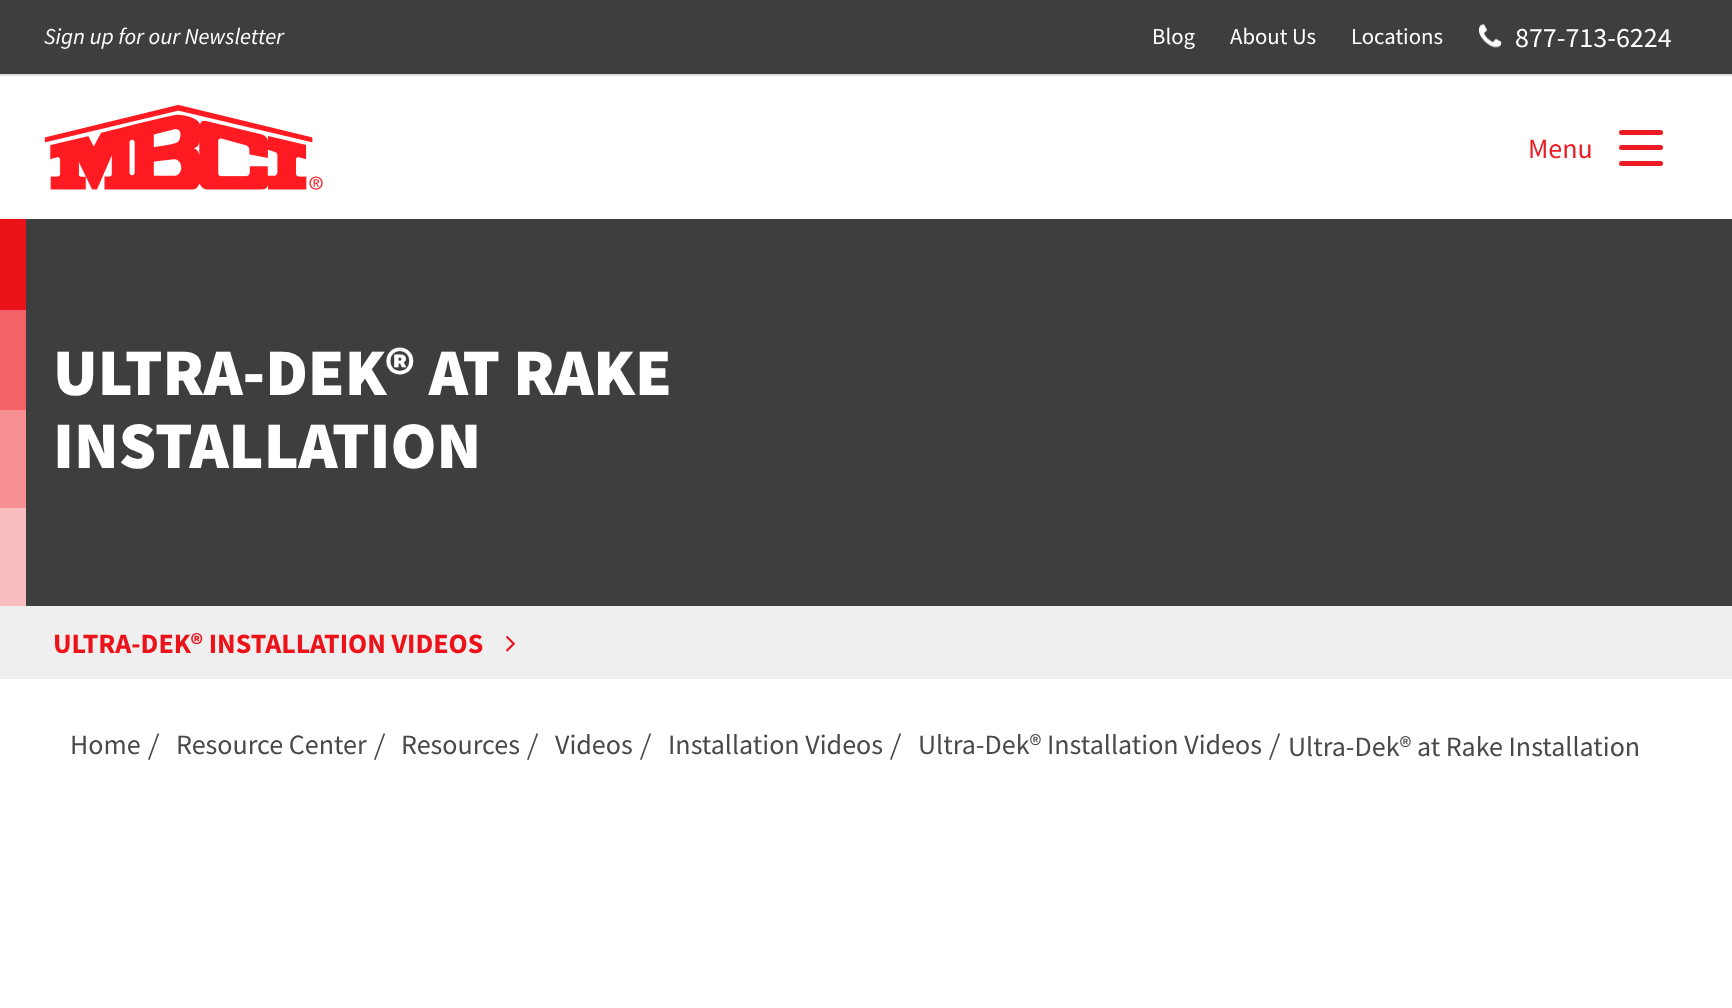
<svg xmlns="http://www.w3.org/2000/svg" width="1732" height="1008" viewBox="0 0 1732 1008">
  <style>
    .t1 { font: italic 22.75px Source Sans Pro; fill: #fff; }
    .t2 { font: 22.75px Source Sans Pro; fill: #fff; }
    .t3 { font: 28px Source Sans Pro; fill: #fff; }
    .t4 { font: 28px Source Sans Pro; fill: #ed1c24; }
    .t5 { font: 900 66.5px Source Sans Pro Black; fill: #fff; }
    .t6 { font: bold 28px Source Sans Pro; fill: #eb121a; }
    .t7 { font: 28px Source Sans Pro; fill: #494949; }
  </style>
  <rect width="100%" height="100%" fill="#fff"/>
  <rect x="0" y="0" width="1732" height="74" fill="#3e3e3e"/>
  <rect x="0" y="74" width="1732" height="2" fill="#dfdfdf"/>
  <text x="44" y="44" class="t1">Sign up for our Newsletter</text>
  <text x="1152" y="44" class="t2">Blog</text>
  <text x="1230" y="44" class="t2">About Us</text>
  <text x="1351" y="44" class="t2">Locations</text>
  <image x="1479" y="24" width="23" height="24" href="images/1.png"/>
  <text x="1515" y="47" class="t3">877-713-6224</text>
  <image x="44" y="104" width="279" height="86" href="images/2.png"/>
  <text x="1528" y="158" class="t4">Menu</text>
  <rect x="1619" y="130" width="44" height="5" rx="2.5" fill="#ed1c24"/>
  <rect x="1619" y="145" width="44" height="5" rx="2.5" fill="#ed1c24"/>
  <rect x="1619" y="161" width="44" height="5" rx="2.5" fill="#ed1c24"/>
  <rect x="26" y="219" width="1706" height="387" fill="#3e3e3e"/>
  <rect x="0" y="219" width="26" height="91" fill="#eb121a"/>
  <rect x="0" y="310" width="26" height="100" fill="#f26266"/>
  <rect x="0" y="410" width="26" height="98" fill="#f78f93"/>
  <rect x="0" y="508" width="26" height="98" fill="#f9bdbf"/>
  <text x="53" y="395" class="t5">ULTRA-DEK® AT RAKE</text>
  <text x="53" y="468" class="t5">INSTALLATION</text>
  <rect x="0" y="606" width="1732" height="73" fill="#efefef"/>
  <text x="53" y="653" class="t6">ULTRA-DEK® INSTALLATION VIDEOS</text>
  <image x="506" y="636" width="9" height="16" href="images/3.png"/>
  <text x="70" y="754" class="t7">Home</text>
  <text x="148" y="752" transform="rotate(20 148 752)" class="t7">|</text>
  <text x="176" y="754" class="t7">Resource Center</text>
  <text x="374" y="752" transform="rotate(20 374 752)" class="t7">|</text>
  <text x="401" y="754" class="t7">Resources</text>
  <text x="527" y="752" transform="rotate(20 527 752)" class="t7">|</text>
  <text x="555" y="754" class="t7">Videos</text>
  <text x="640" y="752" transform="rotate(20 640 752)" class="t7">|</text>
  <text x="668" y="754" class="t7">Installation Videos</text>
  <text x="890" y="752" transform="rotate(20 890 752)" class="t7">|</text>
  <text x="918" y="754" class="t7">Ultra-Dek® Installation Videos</text>
  <text x="1269" y="752" transform="rotate(20 1269 752)" class="t7">|</text>
  <text x="1288" y="756" class="t7">Ultra-Dek® at Rake Installation</text>
</svg>
